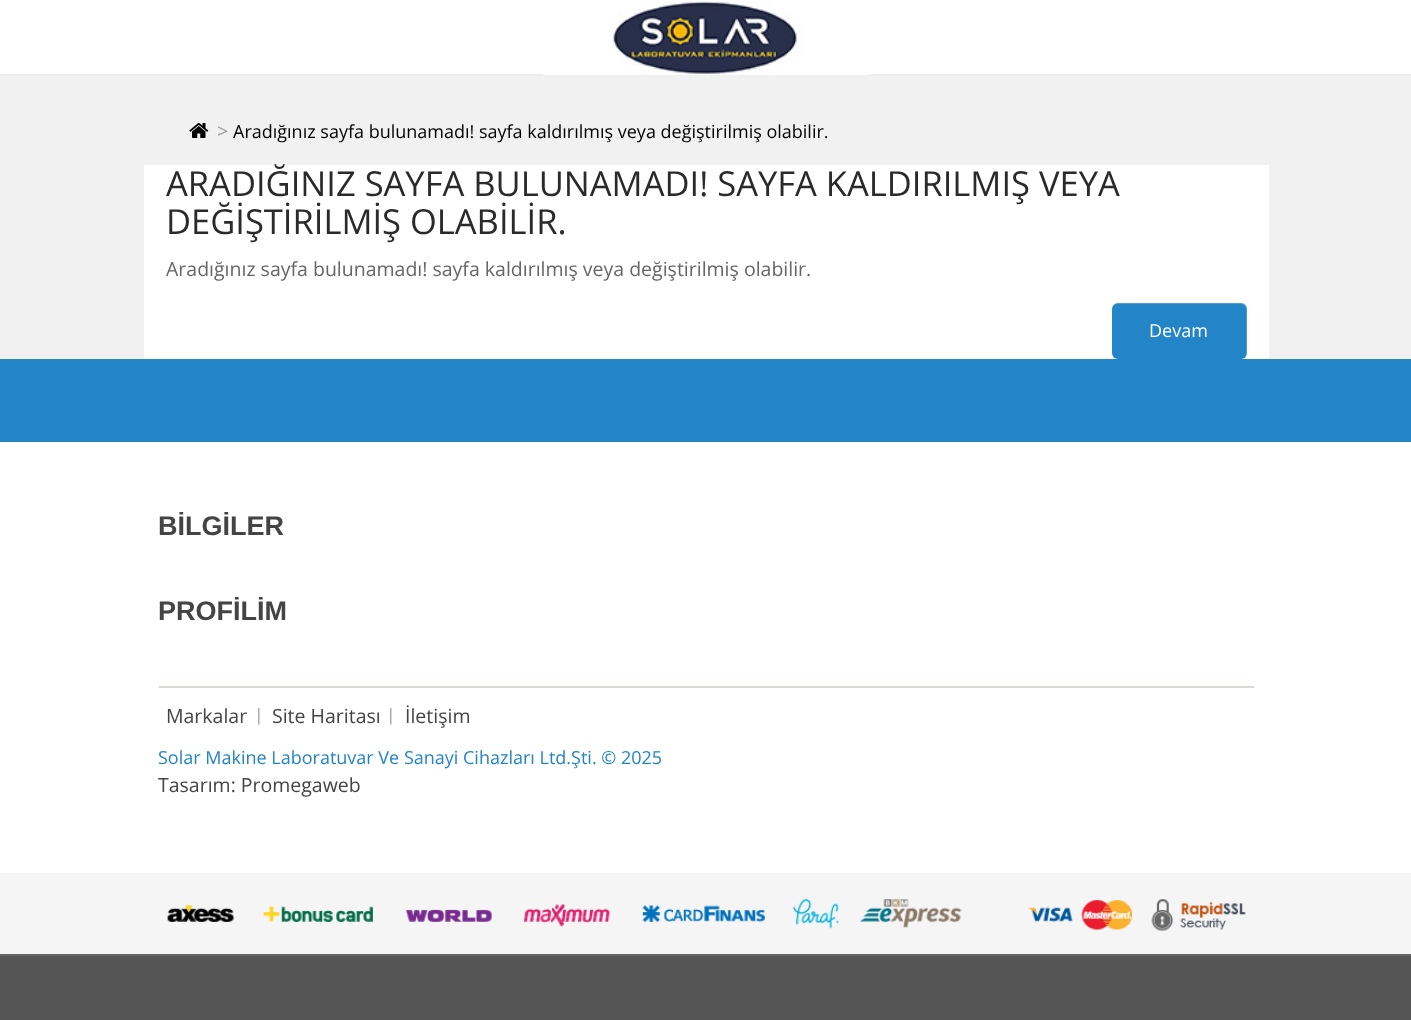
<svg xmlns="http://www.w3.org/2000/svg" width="1411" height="1020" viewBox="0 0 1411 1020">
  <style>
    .t1 { font: 19.5px Open Sans; fill: #999; }
    .t2 { font: 18px Open Sans; fill: #000; }
    .t3 { font: 34.5px Open Sans; fill: #2a2a2a; }
    .t4 { font: 19.5px Open Sans; fill: #666; }
    .t5 { font: 18px Open Sans; fill: #fff; }
    .t6 { font: bold 27px Liberation Sans; fill: #444; }
    .t7 { font: 19.5px Open Sans; fill: #444; }
    .t8 { font: 18px Open Sans; fill: #2384c7; }
  </style>
  <rect width="100%" height="100%" fill="#f1f1f1"/>
  <rect x="0" y="0" width="1411" height="74" fill="#fff"/>
  <rect x="0" y="74" width="1411" height="2" fill="#eee"/>
  <image x="543" y="1" width="326" height="74" href="images/1.png"/>
  <image x="189" y="123" width="20" height="15" href="images/2.png"/>
  <text x="217" y="138" class="t1">&gt;</text>
  <text x="233" y="138" class="t2">Aradığınız sayfa bulunamadı! sayfa kaldırılmış veya değiştirilmiş olabilir.</text>
  <rect x="144" y="165" width="1125" height="194" fill="#fff"/>
  <text x="166" y="196" class="t3">ARADIĞINIZ SAYFA BULUNAMADI! SAYFA KALDIRILMIŞ VEYA</text>
  <text x="166" y="234" class="t3">DEĞİŞTİRİLMİŞ OLABİLİR.</text>
  <text x="166" y="276" class="t4">Aradığınız sayfa bulunamadı! sayfa kaldırılmış veya değiştirilmiş olabilir.</text>
  <rect x="1112" y="305" width="135" height="55" rx="6" fill="#0000000d" filter="blur(1.5px)"/>
  <rect x="1112" y="303" width="135" height="56" rx="6" fill="#2384c7"/>
  <path d="M1118 304H1240C1244 304 1246 307 1246 310V354C1246 355 1246 356 1245 357C1246 356 1247 355 1247 353V309C1247 306 1244 303 1241 303H1118C1115 303 1112 306 1112 309V310C1112 307 1114 304 1118 304Z" fill="#ffffff33"/>
  <text x="1149" y="337" class="t5">Devam</text>
  <rect x="0" y="442" width="1411" height="431" fill="#fff"/>
  <rect x="0" y="359" width="1411" height="83" fill="#2384c7"/>
  <text x="158" y="535" class="t6">BİLGİLER</text>
  <text x="158" y="620" class="t6">PROFİLİM</text>
  <rect x="159" y="686" width="1095" height="2" fill="#dad8cf"/>
  <text x="166" y="723" class="t7">Markalar</text>
  <image x="258" y="708" width="2" height="17" href="images/3.png"/>
  <text x="272" y="723" class="t7">Site Haritası</text>
  <image x="390" y="708" width="2" height="17" href="images/3.png"/>
  <text x="405" y="723" class="t7">İletişim</text>
  <text x="158" y="764" class="t8">Solar Makine Laboratuvar Ve Sanayi Cihazları Ltd.Şti. © 2025</text>
  <text x="158" y="792" class="t7">Tasarım: Promegaweb</text>
  <rect x="0" y="873" width="1411" height="81" fill="#f5f5f5"/>
  <image x="167" y="899" width="1079" height="32" href="images/4.png"/>
  <rect x="0" y="956" width="1411" height="64" fill="#555"/>
  <rect x="0" y="954" width="1411" height="2" fill="#666"/>
</svg>
